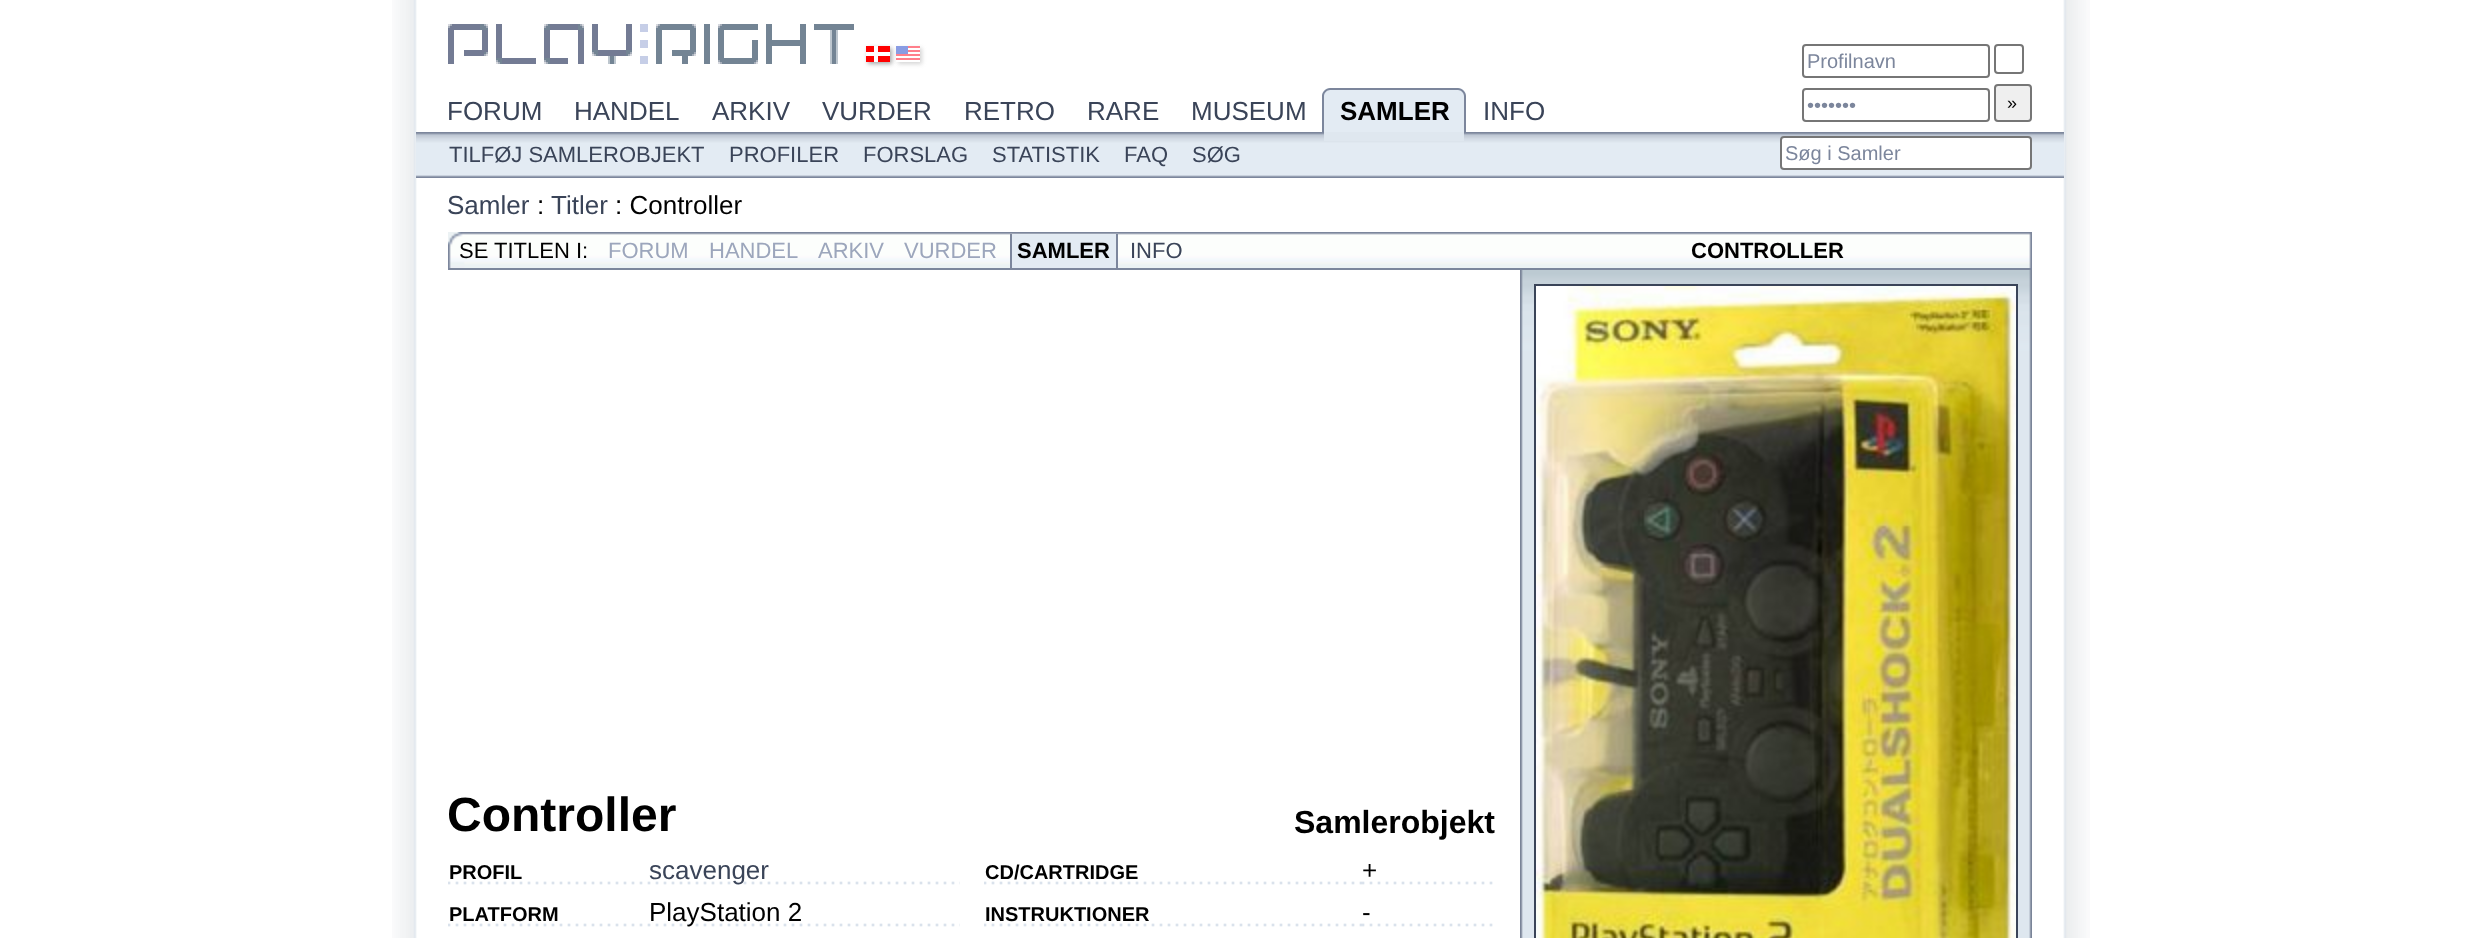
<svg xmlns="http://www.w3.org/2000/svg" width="2477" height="938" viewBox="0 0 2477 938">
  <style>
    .t1 { font: 20px Liberation Sans; fill: #7c869c; }
    .t2 { font: 18px Liberation Sans; fill: #000; }
    .t3 { font: 26px Liberation Sans; fill: #3a4458; }
    .t4 { font: 26px Liberation Sans; fill: #000; }
    .t5 { font: 22px Liberation Sans; fill: #000; }
    .t6 { font: 22px Liberation Sans; fill: #9ca6bc; }
    .t7 { font: bold 22px Liberation Sans; fill: #000; }
    .t8 { font: 22px Liberation Sans; fill: #3a4458; }
    .t9 { font: bold 48px Liberation Sans; fill: #000; }
    .t10 { font: bold 32px Liberation Sans; fill: #000; }
    .t11 { font: bold 20px Liberation Sans; fill: #000; }
    .t12 { font: bold 26px Liberation Sans; fill: #000; }
  </style>
  <defs>
    <clipPath id="clip1"><path d="M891 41H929V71H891ZM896 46H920V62H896Z" clip-rule="evenodd"/></clipPath>
  </defs>
  <rect width="100%" height="100%" fill="#fff"/>
  <image x="392" y="0" width="1698" height="938" href="images/1.png"/>
  <image x="448" y="24" width="406" height="40" href="images/2.png"/>
  <rect x="868" y="48" width="24" height="16" fill="#aaa" filter="blur(2px)"/>
  <g clip-path="url(#clip1)">
    <rect x="898" y="48" width="24" height="16" fill="#aaaaaa80" filter="blur(2px)"/>
  </g>
  <image x="866" y="46" width="24" height="16" href="images/3.png"/>
  <image x="896" y="46" width="24" height="14" href="images/4.png"/>
  <rect x="1803" y="45" width="186" height="32" rx="3" fill="none" stroke="#767676" stroke-width="2"/>
  <text x="1807" y="68" class="t1">Profilnavn</text>
  <rect x="1995" y="45" width="28" height="28" rx="3" fill="none" stroke="#767676" stroke-width="2"/>
  <rect x="1803" y="89" width="186" height="32" rx="3" fill="none" stroke="#767676" stroke-width="2"/>
  <text x="1807" y="112" class="t1">•••••••</text>
  <rect x="1995" y="85" width="36" height="36" rx="3" fill="#efefef" stroke="#767676" stroke-width="2"/>
  <text x="2007" y="109" class="t2">»</text>
  <text x="447" y="214" class="t3">Samler</text>
  <text x="537" y="214" class="t4">:</text>
  <text x="551" y="214" class="t3">Titler</text>
  <text x="615" y="214" class="t4">: Controller</text>
  <image x="448" y="232" width="1584" height="36" href="images/5.png"/>
  <rect x="448" y="268" width="1584" height="2" fill="#7c869c"/>
  <text x="459" y="258" class="t5">SE TITLEN I:</text>
  <text x="608" y="258" class="t6">FORUM</text>
  <text x="709" y="258" class="t6">HANDEL</text>
  <text x="818" y="258" class="t6">ARKIV</text>
  <text x="904" y="258" class="t6">VURDER</text>
  <rect x="1012" y="234" width="104" height="34" fill="#e3ebf3"/>
  <rect x="1116" y="234" width="2" height="34" fill="#7c869c"/>
  <rect x="1010" y="234" width="2" height="34" fill="#7c869c"/>
  <text x="1017" y="258" class="t7">SAMLER</text>
  <text x="1130" y="258" class="t8">INFO</text>
  <text x="1691" y="258" class="t7">CONTROLLER</text>
  <text x="447" y="831" class="t9">Controller</text>
  <text x="1294" y="833" class="t10">Samlerobjekt</text>
  <image x="448" y="881" width="200" height="4" href="images/6.png"/>
  <text x="449" y="879" class="t11">PROFIL</text>
  <image x="648" y="881" width="312" height="4" href="images/7.png"/>
  <text x="649" y="879" class="t3">scavenger</text>
  <image x="448" y="923" width="200" height="4" href="images/6.png"/>
  <text x="449" y="921" class="t11">PLATFORM</text>
  <image x="648" y="923" width="312" height="4" href="images/7.png"/>
  <text x="649" y="921" class="t4">PlayStation 2</text>
  <image x="984" y="881" width="378" height="4" href="images/8.png"/>
  <text x="985" y="879" class="t11">CD/CARTRIDGE</text>
  <image x="1362" y="881" width="131" height="4" href="images/9.png"/>
  <text x="1362" y="879" class="t4">+</text>
  <image x="984" y="923" width="378" height="4" href="images/8.png"/>
  <text x="985" y="921" class="t11">INSTRUKTIONER</text>
  <image x="1362" y="923" width="131" height="4" href="images/9.png"/>
  <text x="1362" y="921" class="t4">-</text>
  <image x="1520" y="270" width="512" height="668" href="images/10.png"/>
  <rect x="1535" y="285" width="482" height="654" fill="none" stroke="#3a4458" stroke-width="2"/>
  <image x="1536" y="286" width="480" height="652" href="images/11.png"/>
  <text x="447" y="120" class="t3">FORUM</text>
  <text x="574" y="120" class="t3">HANDEL</text>
  <text x="712" y="120" class="t3">ARKIV</text>
  <text x="822" y="120" class="t3">VURDER</text>
  <text x="964" y="120" class="t3">RETRO</text>
  <text x="1087" y="120" class="t3">RARE</text>
  <text x="1191" y="120" class="t3">MUSEUM</text>
  <path d="M1330 88H1458C1462.5 88 1466 91.5 1466 96V132H1322V96C1322 91.5 1325.5 88 1330 88Z" fill="#e3ebf3"/>
  <path d="M1330 88H1458C1462 88 1466 92 1466 96V132H1322V96C1322 92 1326 88 1330 88ZM1330 90H1458C1461 90 1464 93 1464 96V132H1324V96C1324 93 1327 90 1330 90Z" fill="#7c869c" fill-rule="evenodd"/>
  <text x="1340" y="120" class="t12">SAMLER</text>
  <image x="416" y="132" width="1648" height="46" href="images/12.png"/>
  <rect x="1324" y="132" width="140" height="9" fill="#dfe7ef"/>
  <text x="1483" y="120" class="t3">INFO</text>
  <text x="449" y="162" class="t8">TILFØJ SAMLEROBJEKT</text>
  <text x="729" y="162" class="t8">PROFILER</text>
  <text x="863" y="162" class="t8">FORSLAG</text>
  <text x="992" y="162" class="t8">STATISTIK</text>
  <text x="1124" y="162" class="t8">FAQ</text>
  <text x="1192" y="162" class="t8">SØG</text>
  <rect x="1781" y="137" width="250" height="32" rx="3" fill="#fff" stroke="#767676" stroke-width="2"/>
  <text x="1785" y="160" class="t1">Søg i Samler</text>
</svg>
